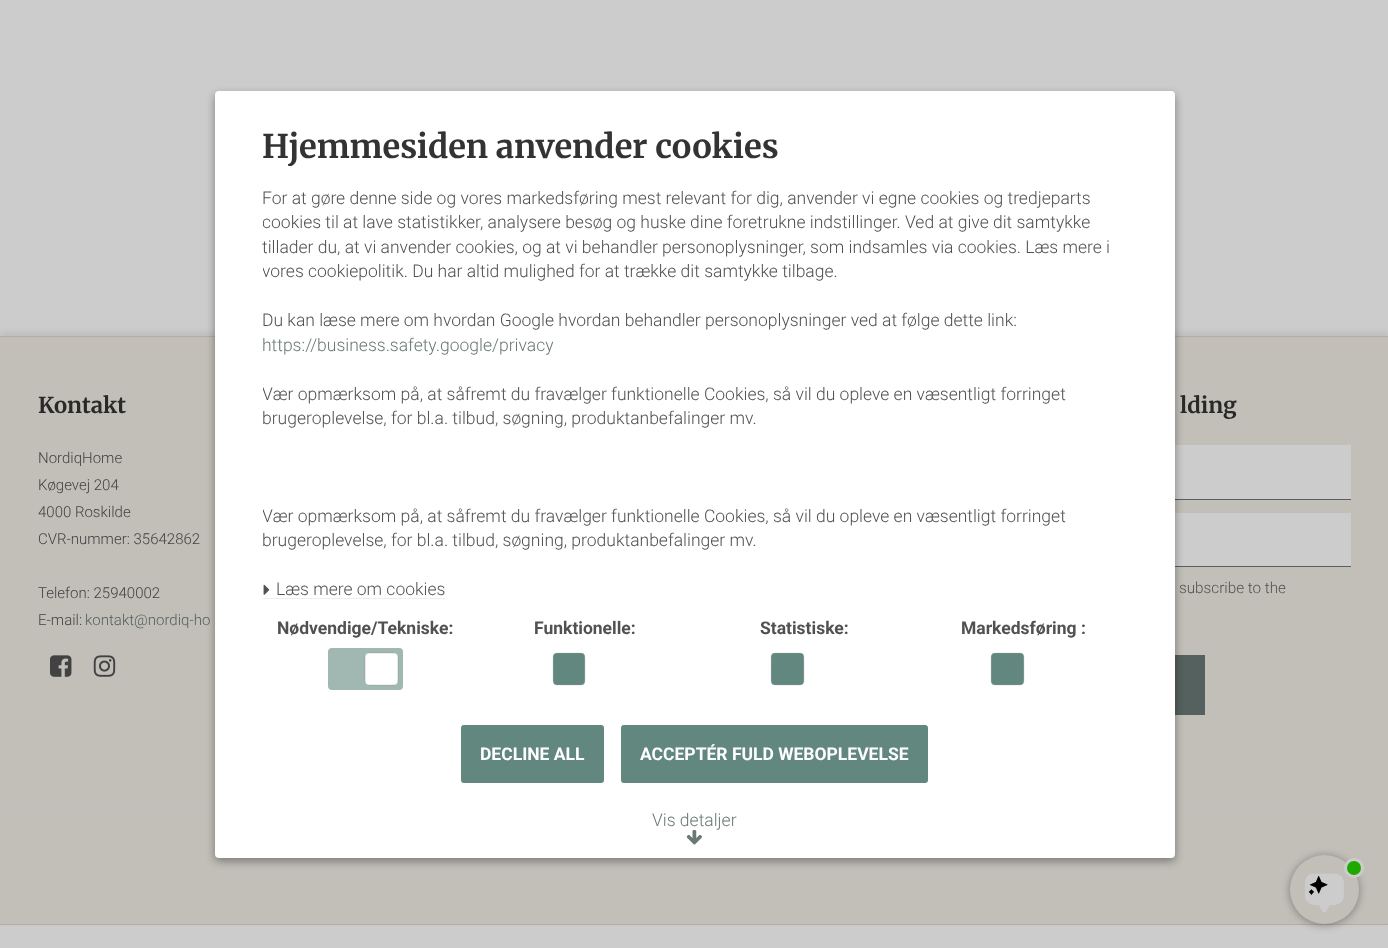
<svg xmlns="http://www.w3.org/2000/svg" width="1388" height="948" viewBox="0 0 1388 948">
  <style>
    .t1 { font: bold 32.75px Merriweather; fill: #333; }
    .t2 { font: 300 17.5px Roboto; fill: #515250; }
    .t3 { font: 300 17.5px Roboto; fill: #6a7976; }
    .t4 { font: bold 17.5px Roboto; fill: #515250; }
    .t5 { font: bold 17.5px Roboto; fill: #fff; }
    .t6 { font: bold 22px Merriweather; fill: #292929; }
    .t7 { font: 300 15px Roboto; fill: #424242; }
    .t8 { font: 300 15px Roboto; fill: #55615e; }
    .t9 { font: 300 15.25px Roboto; fill: #515250; }
  </style>
  <defs>
    <clipPath id="clip1"><rect x="263" y="186" width="865" height="392"/></clipPath>
  </defs>
  <rect width="100%" height="100%" fill="#ccc"/>
  <rect x="0" y="333" width="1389" height="588" fill="#00000014" filter="blur(3px)"/>
  <rect x="0" y="337" width="1388" height="587" fill="#c2bfb9"/>
  <rect x="0" y="336" width="1388" height="1" fill="#b5ad9e"/>
  <rect x="1175" y="445" width="176" height="54" fill="#ccc"/>
  <rect x="1175" y="499" width="176" height="1" fill="#55615e"/>
  <rect x="1175" y="513" width="176" height="53" fill="#ccc"/>
  <rect x="1175" y="566" width="176" height="1" fill="#55615e"/>
  <rect x="1175" y="655" width="30" height="60" fill="#55615e"/>
  <rect x="0" y="801" width="1388" height="1" fill="#bebebe"/>
  <rect x="215" y="95" width="960" height="766" rx="4" fill="#0000003b" filter="blur(4px)"/>
  <rect x="215" y="95" width="960" height="766" rx="4" fill="#00000029" filter="blur(4px)"/>
  <rect x="215" y="91" width="960" height="767" rx="4" fill="#fff"/>
  <text x="262" y="158" class="t1">Hjemmesiden anvender cookies</text>
  <text x="262" y="204" class="t2">For at gøre denne side og vores markedsføring mest relevant for dig, anvender vi egne cookies og tredjeparts</text>
  <g clip-path="url(#clip1)">
    <text x="262" y="228" class="t2">cookies til at lave statistikker, analysere besøg og huske dine foretrukne indstillinger. Ved at give dit samtykke</text>
  </g>
  <text x="262" y="253" class="t2">tillader du, at vi anvender cookies, og at vi behandler personoplysninger, som indsamles via cookies. Læs mere i</text>
  <g clip-path="url(#clip1)">
    <text x="262" y="277" class="t2">vores cookiepolitik. Du har altid mulighed for at trække dit samtykke tilbage.</text>
  </g>
  <text x="262" y="326" class="t2">Du kan læse mere om hvordan Google hvordan behandler personoplysninger ved at følge dette link:</text>
  <text x="262" y="351" class="t3">https://business.safety.google/privacy</text>
  <g clip-path="url(#clip1)">
    <text x="262" y="400" class="t2">Vær opmærksom på, at såfremt du fravælger funktionelle Cookies, så vil du opleve en væsentligt forringet</text>
  </g>
  <text x="262" y="424" class="t2">brugeroplevelse, for bl.a. tilbud, søgning, produktanbefalinger mv.</text>
  <g clip-path="url(#clip1)">
    <text x="262" y="522" class="t2">Vær opmærksom på, at såfremt du fravælger funktionelle Cookies, så vil du opleve en væsentligt forringet</text>
  </g>
  <text x="262" y="546" class="t2">brugeroplevelse, for bl.a. tilbud, søgning, produktanbefalinger mv.</text>
  <rect x="263" y="598" width="182" height="1" fill="#eee"/>
  <image x="263" y="584" width="7" height="11" href="images/1.png"/>
  <text x="276" y="595" class="t2">Læs mere om cookies</text>
  <text x="277" y="634" class="t4">Nødvendige/Tekniske:</text>
  <rect x="328" y="648" width="75" height="42" rx="4" fill="#a0b7b2"/>
  <rect x="365.1" y="653.1" width="32.8" height="31.8" rx="3.9" fill="none" stroke="#7a8280" stroke-width="0.2"/>
  <rect x="365.1" y="653.1" width="32.8" height="31.8" rx="3.9" fill="#fff" stroke="#7a8280" stroke-width="0.2"/>
  <text x="534" y="634" class="t4">Funktionelle:</text>
  <rect x="553.1" y="653.1" width="31.8" height="31.8" rx="3.9" fill="none" stroke="#b3b3b3" stroke-width="0.2"/>
  <rect x="553.1" y="653.1" width="31.8" height="31.8" rx="3.9" fill="#61877f" stroke="#b3b3b3" stroke-width="0.2"/>
  <text x="760" y="634" class="t4">Statistiske:</text>
  <rect x="771.1" y="653.1" width="32.8" height="31.8" rx="3.9" fill="none" stroke="#b3b3b3" stroke-width="0.2"/>
  <rect x="771.1" y="653.1" width="32.8" height="31.8" rx="3.9" fill="#61877f" stroke="#b3b3b3" stroke-width="0.2"/>
  <text x="961" y="634" class="t4">Markedsføring :</text>
  <rect x="991.1" y="653.1" width="32.8" height="31.8" rx="3.9" fill="none" stroke="#b3b3b3" stroke-width="0.2"/>
  <rect x="991.1" y="653.1" width="32.8" height="31.8" rx="3.9" fill="#61877f" stroke="#b3b3b3" stroke-width="0.2"/>
  <rect x="461.5" y="725.5" width="142" height="57" rx="2" fill="#61877f" stroke="#61877f"/>
  <text x="480" y="760" class="t5">DECLINE ALL</text>
  <rect x="621.5" y="725.5" width="306" height="57" rx="2" fill="#61877f" stroke="#61877f"/>
  <text x="640" y="760" class="t5">ACCEPTÉR FULD WEBOPLEVELSE</text>
  <text x="652" y="826" class="t3">Vis detaljer</text>
  <image x="686" y="830" width="16" height="15" href="images/2.png"/>
  <rect x="0" y="924" width="1388" height="1" fill="#b5ad9e"/>
  <text x="38" y="413" class="t6">Kontakt</text>
  <text x="38" y="463" class="t7">NordiqHome</text>
  <text x="38" y="490" class="t7">Køgevej 204</text>
  <text x="38" y="517" class="t7">4000 Roskilde</text>
  <text x="38" y="544" class="t7">CVR-nummer: 35642862</text>
  <text x="38" y="598" class="t7">Telefon: 25940002</text>
  <text x="38" y="625" class="t7">E-mail:</text>
  <text x="85" y="625" class="t8">kontakt@nordiq-ho</text>
  <image x="50" y="655" width="22" height="22" href="images/3.png"/>
  <image x="93" y="655" width="23" height="22" href="images/4.png"/>
  <text x="1180" y="413" class="t6">lding</text>
  <text x="1179" y="593" class="t9">subscribe to the</text>
  <rect x="1290" y="856" width="69" height="69" rx="34.5" fill="#00000059" filter="blur(4.5px)"/>
  <circle cx="1324.5" cy="889.5" r="34.5" fill="#c2bfb9"/>
  <circle cx="1354" cy="868" r="8.5" fill="#1ea900" stroke="#ccc" stroke-width="3"/>
  <image x="1305" y="873" width="39" height="40" href="images/5.png"/>
</svg>
